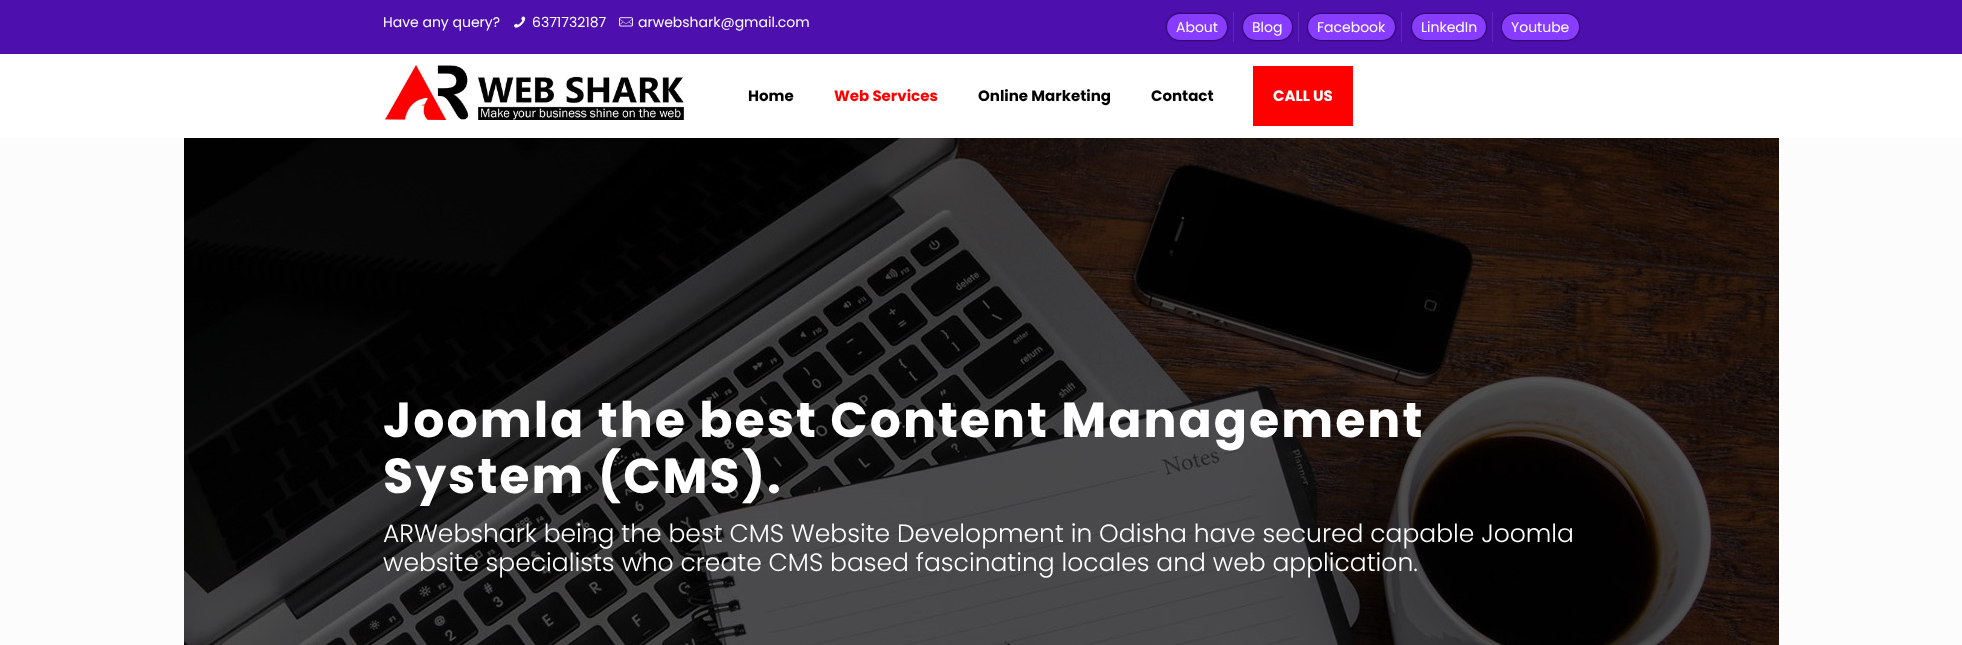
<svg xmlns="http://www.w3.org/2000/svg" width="1962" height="645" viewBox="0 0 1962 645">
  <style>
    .t1 { font: 14px Poppins; fill: #fff; }
    .t2 { font: bold 15px Poppins; fill: #000; }
    .t3 { font: bold 15px Poppins; fill: #fe0000; }
    .t4 { font: bold 15px Poppins; fill: #fff; }
    .t5 { font: bold 49px Poppins; letter-spacing: 2px; fill: #fff; }
    .t6 { font: 300 25px Poppins; fill: #fff; }
  </style>
  <defs>
    <clipPath id="clip1"><path d="M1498 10H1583V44H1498ZM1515 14H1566C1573 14 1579 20 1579 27C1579 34 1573 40 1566 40H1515C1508 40 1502 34 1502 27C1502 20 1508 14 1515 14Z" clip-rule="evenodd"/></clipPath>
  </defs>
  <rect width="100%" height="100%" fill="#fcfcfc"/>
  <rect x="0" y="0" width="1962" height="54" fill="#4d10ae"/>
  <text x="383" y="27" class="t1">Have any query?</text>
  <image x="514" y="16" width="12" height="12" href="images/1.png"/>
  <text x="532" y="27" class="t1">6371732187</text>
  <image x="619" y="17" width="14" height="10" href="images/2.png"/>
  <text x="638" y="27" class="t1">arwebshark@gmail.com</text>
  <rect x="1233" y="12" width="1" height="30" fill="#5f28b6"/>
  <rect x="1167" y="14" width="60" height="26" rx="13" fill="#000" filter="blur(1px)"/>
  <rect x="1167" y="14" width="60" height="26" rx="13" fill="#883cff"/>
  <text x="1176" y="32" class="t1">About</text>
  <rect x="1298" y="12" width="1" height="30" fill="#5f28b6"/>
  <rect x="1243" y="14" width="49" height="26" rx="13" fill="#000" filter="blur(1px)"/>
  <rect x="1243" y="14" width="49" height="26" rx="13" fill="#883cff"/>
  <text x="1252" y="32" class="t1">Blog</text>
  <rect x="1401" y="12" width="1" height="30" fill="#5f28b6"/>
  <rect x="1308" y="14" width="87" height="26" rx="13" fill="#000" filter="blur(1px)"/>
  <rect x="1308" y="14" width="87" height="26" rx="13" fill="#883cff"/>
  <text x="1317" y="32" class="t1">Facebook</text>
  <rect x="1492" y="12" width="1" height="30" fill="#5f28b6"/>
  <rect x="1412" y="14" width="74" height="26" rx="13" fill="#000" filter="blur(1px)"/>
  <rect x="1412" y="14" width="74" height="26" rx="13" fill="#883cff"/>
  <text x="1421" y="32" class="t1">LinkedIn</text>
  <g clip-path="url(#clip1)">
    <rect x="1502" y="14" width="77" height="26" rx="13" fill="#000" filter="blur(1px)"/>
  </g>
  <rect x="1502" y="14" width="77" height="26" rx="13" fill="#883cff"/>
  <text x="1511" y="32" class="t1">Youtube</text>
  <rect x="0" y="54" width="1962" height="84" fill="#fff"/>
  <image x="383" y="65" width="301" height="55" href="images/3.png"/>
  <text x="748" y="101" class="t2">Home</text>
  <text x="834" y="101" class="t3">Web Services</text>
  <text x="978" y="101" class="t2">Online Marketing</text>
  <text x="1151" y="101" class="t2">Contact</text>
  <rect x="1253" y="66" width="100" height="60" fill="#fe0000"/>
  <text x="1273" y="101" class="t4">CALL US</text>
  <image x="184" y="138" width="1595" height="507" href="images/4.png"/>
  <text x="383" y="437" class="t5">Joomla the best Content Management</text>
  <text x="383" y="493" class="t5">System (CMS).</text>
  <text x="383" y="542" class="t6">ARWebshark being the best CMS Website Development in Odisha have secured capable Joomla</text>
  <text x="383" y="571" class="t6">website specialists who create CMS based fascinating locales and web application.</text>
</svg>
